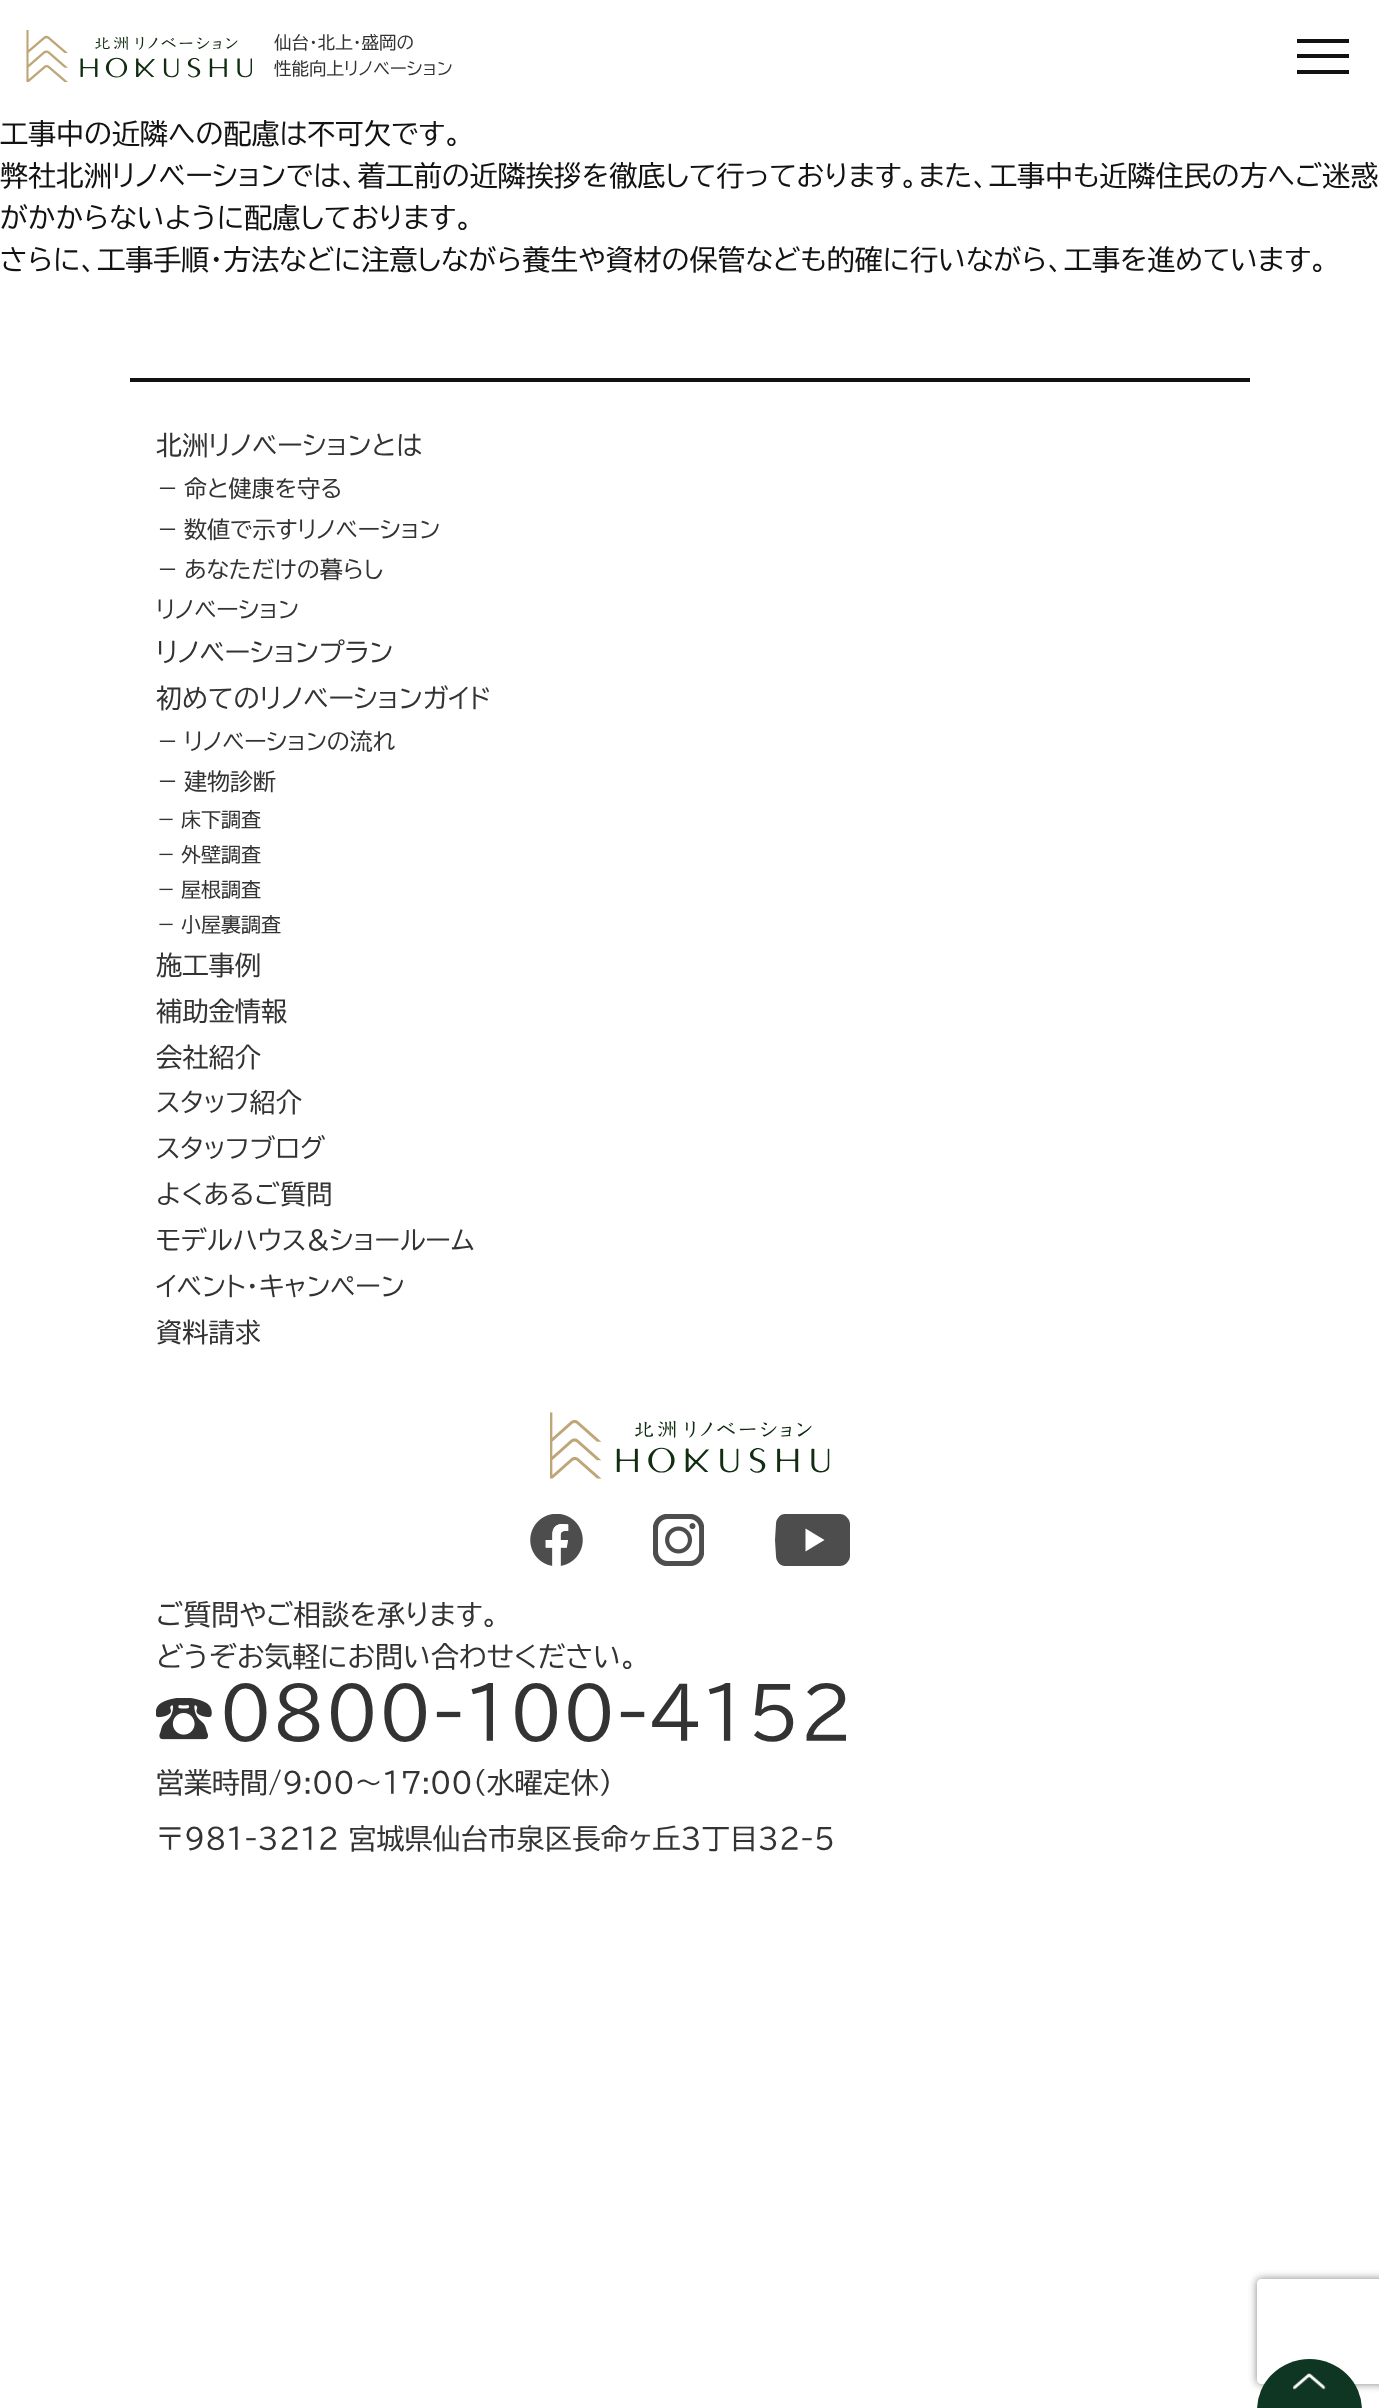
<svg xmlns="http://www.w3.org/2000/svg" width="1379" height="2408" viewBox="0 0 1379 2408">
  <style>
    .t1 { font: 17.5px BIZ UDPGothic; fill: #333; }
    .t2 { font: 28px BIZ UDPGothic; fill: #121212; }
    .t3 { font: 26.25px BIZ UDPGothic; fill: #333; }
    .t4 { font: 23px BIZ UDPGothic; fill: #333; }
    .t5 { font: 20px BIZ UDPGothic; fill: #333; }
    .t6 { font: 28px BIZ UDPGothic; fill: #333; }
    .t7 { font: 70px BIZ UDPGothic; fill: #333; }
  </style>
  <defs>
    <clipPath id="clip1"><path d="M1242 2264H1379V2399H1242ZM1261 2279H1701C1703 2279 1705 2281 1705 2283V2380C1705 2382 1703 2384 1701 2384H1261C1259 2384 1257 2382 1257 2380V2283C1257 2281 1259 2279 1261 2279Z" clip-rule="evenodd"/></clipPath>
  </defs>
  <rect width="100%" height="100%" fill="#fff"/>
  <image x="26" y="30" width="226" height="52" href="images/1.png"/>
  <text x="274" y="49" class="t1">仙台・北上・盛岡の</text>
  <text x="274" y="75" class="t1">性能向上リノベーション</text>
  <rect x="1297" y="39" width="52" height="4" fill="#121212"/>
  <rect x="1297" y="54" width="52" height="4" fill="#121212"/>
  <rect x="1297" y="70" width="52" height="4" fill="#121212"/>
  <text x="0" y="144" class="t2">工事中の近隣への配慮は不可欠です。</text>
  <text x="0" y="186" class="t2">弊社北洲リノベーションでは、着工前の近隣挨拶を徹底して行っております。また、工事中も近隣住民の方へご迷惑</text>
  <text x="0" y="228" class="t2">がかからないように配慮しております。</text>
  <text x="0" y="270" class="t2">さらに、工事手順・方法などに注意しながら養生や資材の保管なども的確に行いながら、工事を進めています。</text>
  <rect x="130" y="378" width="1120" height="4" fill="#121212"/>
  <text x="156" y="455" class="t3">北洲リノベーションとは</text>
  <text x="156" y="497" class="t4">－</text>
  <text x="184" y="497" class="t4">命と健康を守る</text>
  <text x="156" y="538" class="t4">－</text>
  <text x="184" y="538" class="t4">数値で示すリノベーション</text>
  <text x="156" y="578" class="t4">－</text>
  <text x="184" y="578" class="t4">あなただけの暮らし</text>
  <text x="156" y="618" class="t4">リノベーション</text>
  <text x="156" y="662" class="t3">リノベーションプラン</text>
  <text x="156" y="708" class="t3">初めてのリノベーションガイド</text>
  <text x="156" y="750" class="t4">－</text>
  <text x="184" y="750" class="t4">リノベーションの流れ</text>
  <text x="156" y="790" class="t4">－</text>
  <text x="184" y="790" class="t4">建物診断</text>
  <text x="156" y="827" class="t5">－</text>
  <text x="181" y="827" class="t5">床下調査</text>
  <text x="156" y="862" class="t5">－</text>
  <text x="181" y="862" class="t5">外壁調査</text>
  <text x="156" y="897" class="t5">－</text>
  <text x="181" y="897" class="t5">屋根調査</text>
  <text x="156" y="932" class="t5">－</text>
  <text x="181" y="932" class="t5">小屋裏調査</text>
  <text x="156" y="975" class="t3">施工事例</text>
  <text x="156" y="1021" class="t3">補助金情報</text>
  <text x="156" y="1067" class="t3">会社紹介</text>
  <text x="156" y="1112" class="t3">スタッフ紹介</text>
  <text x="156" y="1158" class="t3">スタッフブログ</text>
  <text x="156" y="1204" class="t3">よくあるご質問</text>
  <text x="156" y="1250" class="t3">モデルハウス&amp;ショールーム</text>
  <text x="156" y="1296" class="t3">イベント・キャンペーン</text>
  <text x="156" y="1342" class="t3">資料請求</text>
  <image x="550" y="1412" width="280" height="67" href="images/2.png"/>
  <image x="530" y="1514" width="53" height="52" href="images/3.png"/>
  <image x="653" y="1514" width="51" height="52" href="images/4.png"/>
  <path d="M840 1566H813H785C780 1566 776 1561 776 1556L775 1540L776 1524C776 1519 780 1514 785 1514H813H840C845 1514 850 1519 850 1524V1540V1556C850 1561 845 1566 840 1566Z" fill="#4d4d4d"/>
  <path d="M805.5 1551.5V1528.5L824.5 1540Z" fill="#fff" fill-rule="evenodd"/>
  <text x="156" y="1625" class="t6">ご質問やご相談を承ります。</text>
  <text x="156" y="1667" class="t6">どうぞお気軽にお問い合わせください。</text>
  <image x="156" y="1698" width="56" height="42" href="images/5.png"/>
  <text x="219" y="1739" class="t7">0800-100-4152</text>
  <text x="156" y="1793" class="t6">営業時間/9:00～17:00（水曜定休）</text>
  <text x="156" y="1849" class="t6">〒981-3212 宮城県仙台市泉区長命ヶ丘3丁目32-5</text>
  <g clip-path="url(#clip1)">
    <rect x="1257" y="2279" width="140" height="105" rx="4" fill="#808080" filter="blur(4.5px)"/>
  </g>
  <rect x="1257" y="2359" width="105" height="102" rx="52.5" fill="#0f3523"/>
  <image x="1293" y="2373" width="33" height="17" href="images/6.png"/>
</svg>
